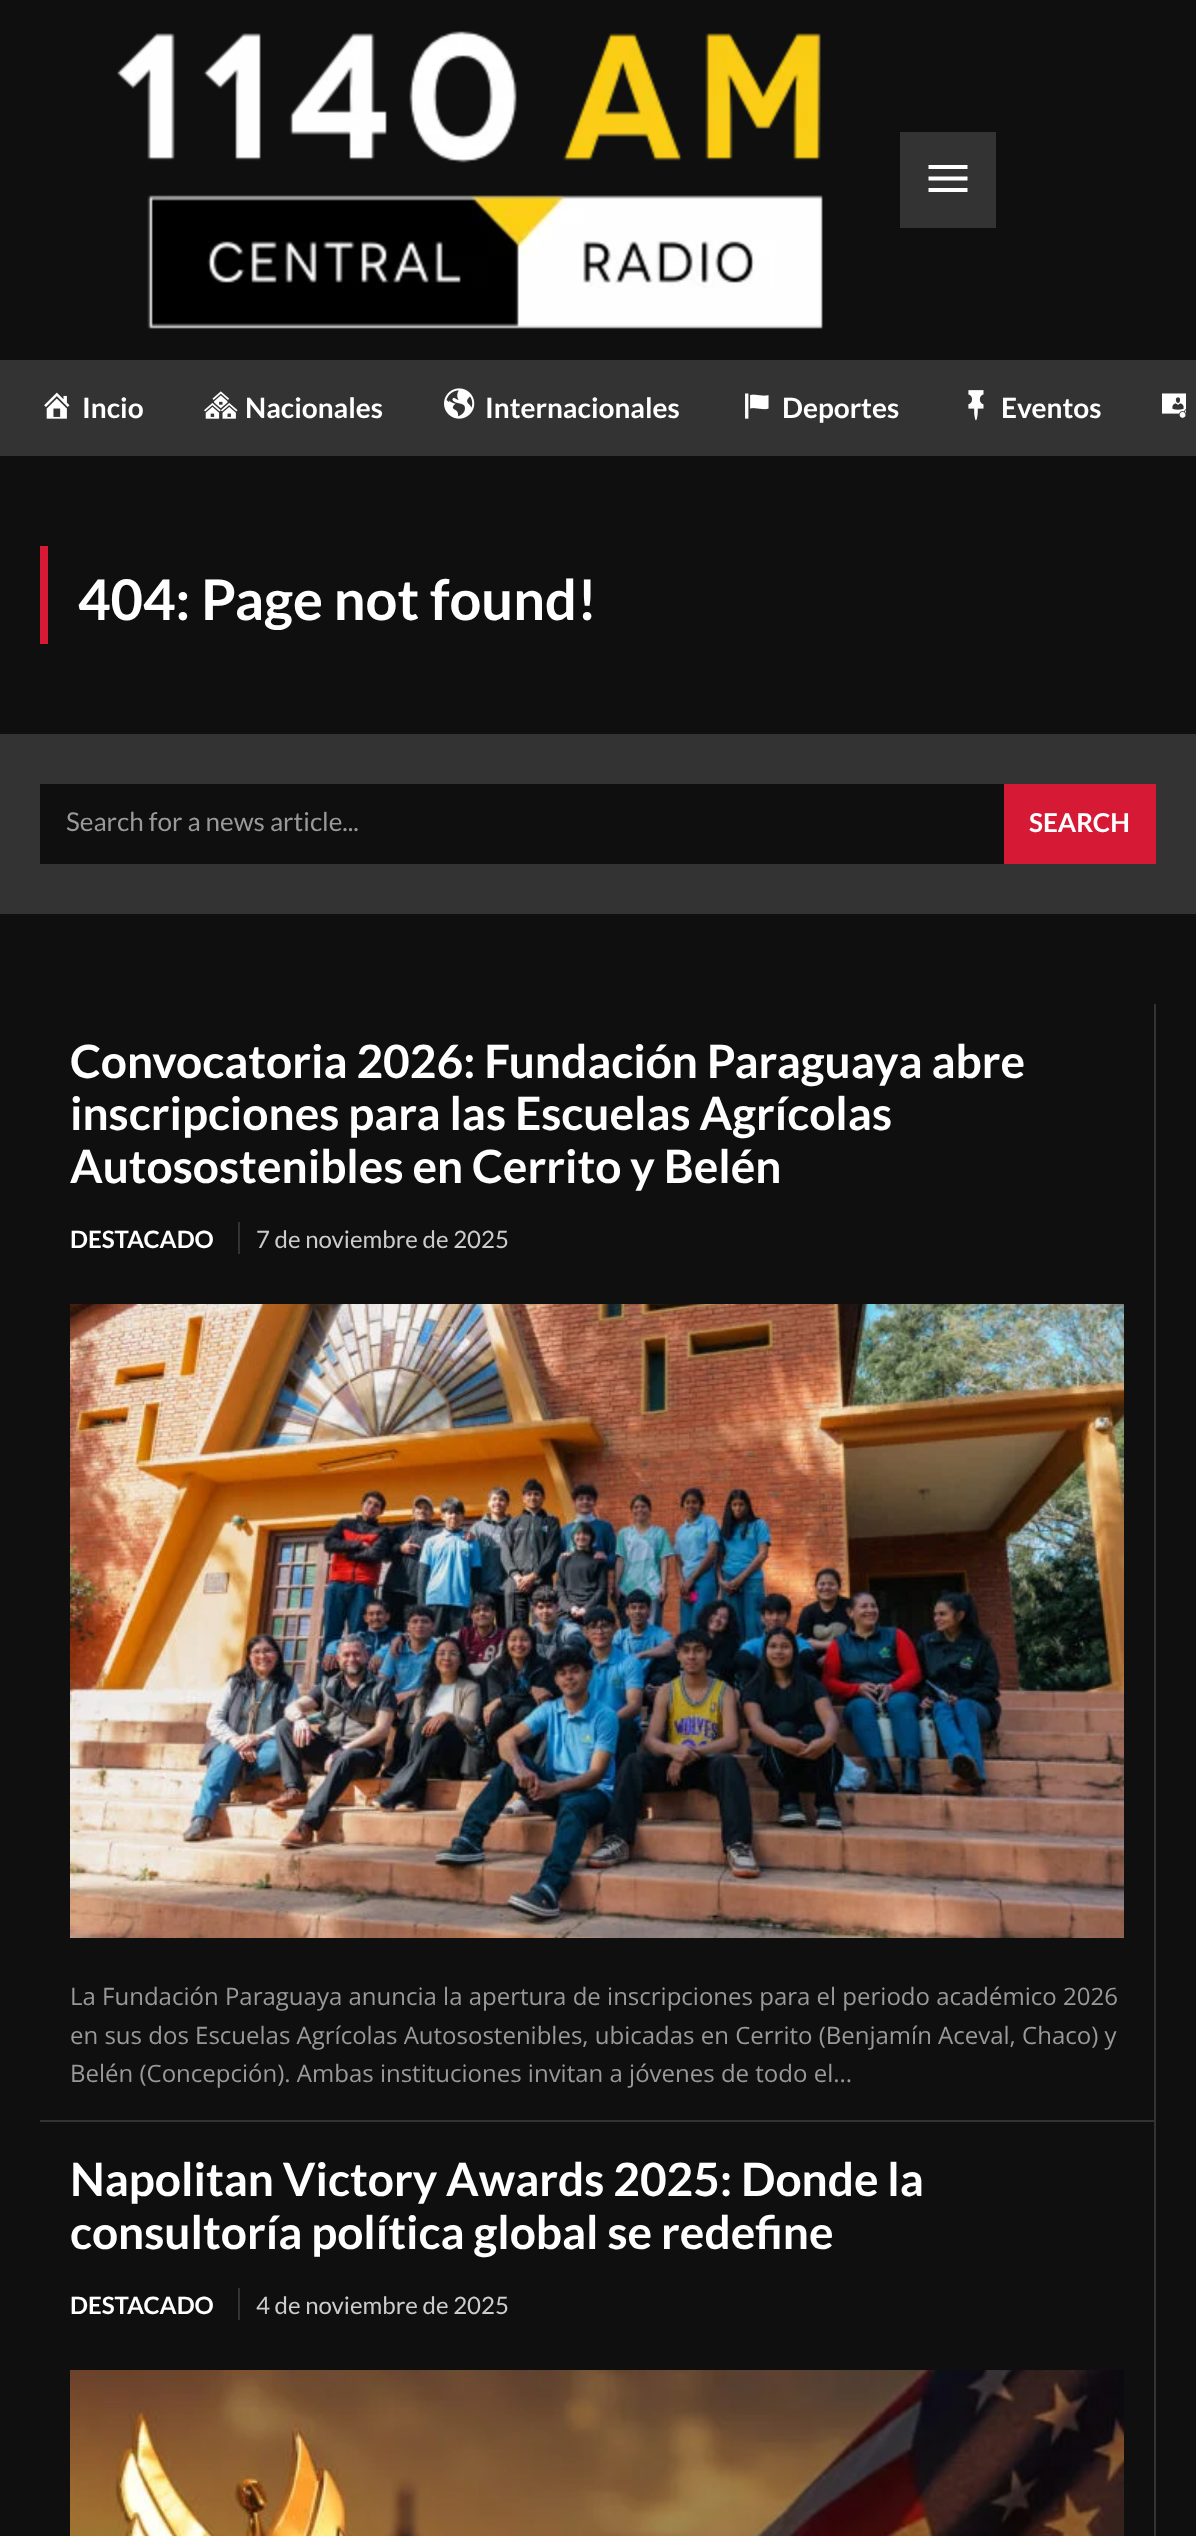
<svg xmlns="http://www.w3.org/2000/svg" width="1196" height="2536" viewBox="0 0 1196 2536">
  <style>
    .t1 { font: bold 28px Lato; fill: #fff; }
    .t2 { font: bold 56px Lato; fill: #fff; }
    .t3 { font: 26px Lato; fill: #999; }
    .t4 { font: bold 26px Lato; fill: #fff; }
    .t5 { font: bold 46px Lato; fill: #fff; }
    .t6 { font: bold 24px Lato; fill: #fff; }
    .t7 { font: 24px Lato; fill: #ccc; }
    .t8 { font: 24px Open Sans; fill: #999; }
  </style>
  <rect width="100%" height="100%" fill="#0f0f0f"/>
  <image x="117" y="31" width="706" height="298" href="images/1.png"/>
  <rect x="900" y="132" width="96" height="96" fill="#333"/>
  <path d="M967.5 169H928.5V165H967.5ZM967.5 180.5H928.5V176.5H967.5ZM967.5 192H928.5V188H967.5Z" fill="#fff"/>
  <rect x="0" y="360" width="1196" height="96" fill="#333"/>
  <image x="44" y="392" width="26" height="27" href="images/2.png"/>
  <text x="82" y="418" class="t1">Incio</text>
  <image x="204" y="391" width="34" height="28" href="images/3.png"/>
  <text x="245" y="418" class="t1">Nacionales</text>
  <image x="444" y="388" width="31" height="31" href="images/4.png"/>
  <text x="485" y="418" class="t1">Internacionales</text>
  <image x="745" y="393" width="24" height="26" href="images/5.png"/>
  <text x="782" y="418" class="t1">Deportes</text>
  <image x="968" y="390" width="16" height="31" href="images/6.png"/>
  <text x="1001" y="418" class="t1">Eventos</text>
  <image x="1162" y="393" width="24" height="25" href="images/7.png"/>
  <rect x="40" y="546" width="8" height="98" fill="#d61935"/>
  <text x="78" y="620" class="t2">404: Page not found!</text>
  <rect x="0" y="734" width="1196" height="180" fill="#333"/>
  <rect x="40" y="784" width="964" height="80" fill="#0f0f0f"/>
  <text x="66" y="831" class="t3">Search for a news article...</text>
  <rect x="1004" y="784" width="152" height="80" fill="#d61935"/>
  <text x="1029" y="832" class="t4">SEARCH</text>
  <rect x="1154" y="1004" width="2" height="1532" fill="#333"/>
  <text x="70" y="1078" class="t5">Convocatoria 2026: Fundación Paraguaya abre</text>
  <text x="70" y="1130" class="t5">inscripciones para las Escuelas Agrícolas</text>
  <text x="70" y="1183" class="t5">Autosostenibles en Cerrito y Belén</text>
  <rect x="238" y="1222" width="2" height="32" fill="#333"/>
  <text x="70" y="1248" class="t6">DESTACADO</text>
  <text x="256" y="1248" class="t7">7 de noviembre de 2025</text>
  <image x="70" y="1304" width="1054" height="634" href="images/8.png"/>
  <text x="70" y="2005" class="t8">La Fundación Paraguaya anuncia la apertura de inscripciones para el periodo académico 2026</text>
  <text x="70" y="2044" class="t8">en sus dos Escuelas Agrícolas Autosostenibles, ubicadas en Cerrito (Benjamín Aceval, Chaco) y</text>
  <text x="70" y="2082" class="t8">Belén (Concepción). Ambas instituciones invitan a jóvenes de todo el...</text>
  <rect x="40" y="2120" width="1114" height="2" fill="#333"/>
  <text x="70" y="2196" class="t5">Napolitan Victory Awards 2025: Donde la</text>
  <text x="70" y="2249" class="t5">consultoría política global se redefine</text>
  <rect x="238" y="2288" width="2" height="32" fill="#333"/>
  <text x="70" y="2314" class="t6">DESTACADO</text>
  <text x="256" y="2314" class="t7">4 de noviembre de 2025</text>
  <image x="70" y="2370" width="1054" height="166" href="images/9.png"/>
</svg>
